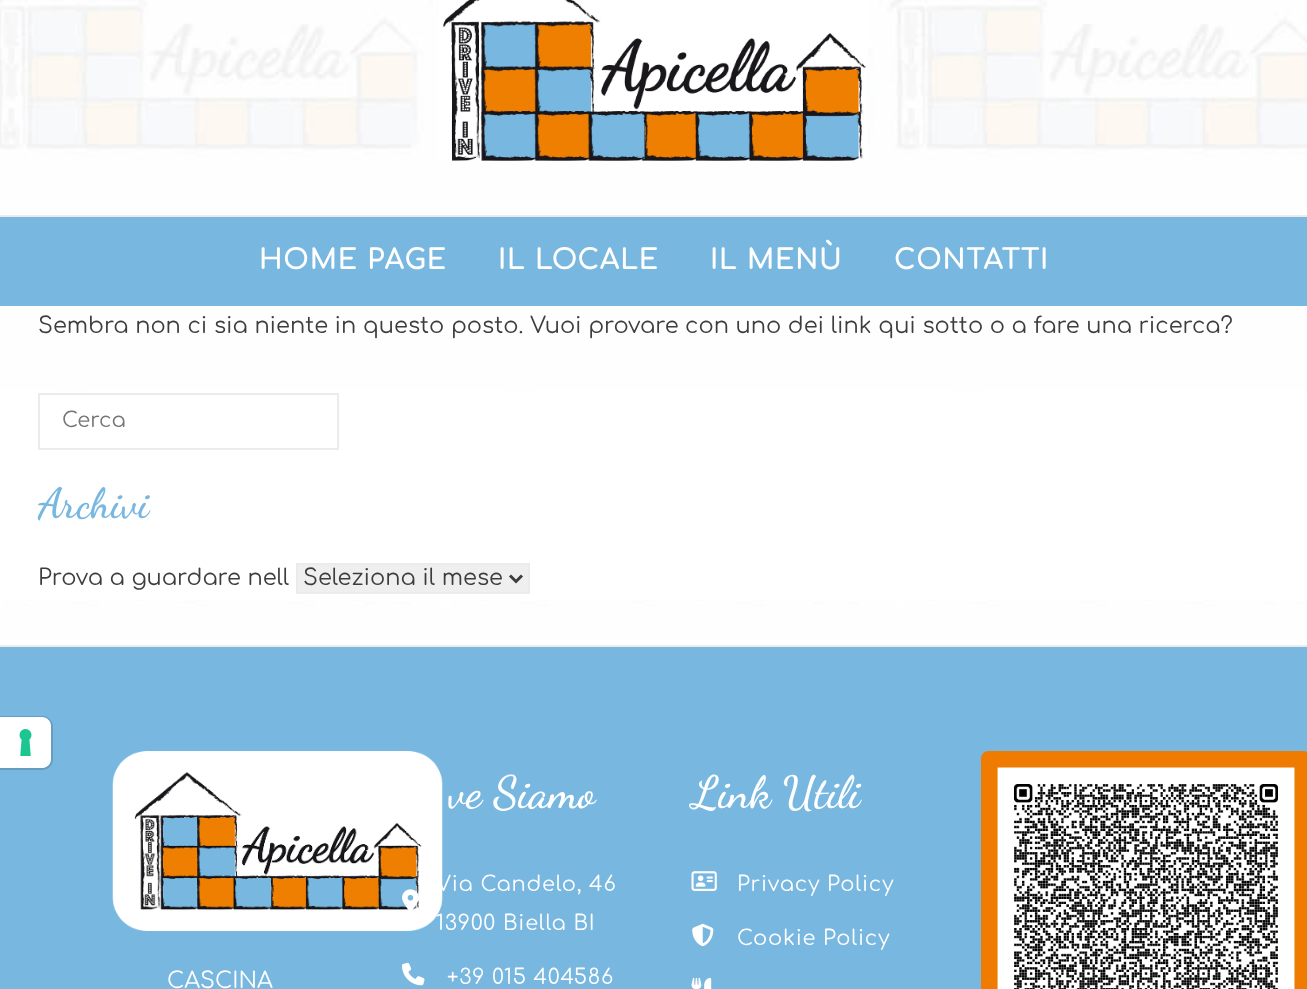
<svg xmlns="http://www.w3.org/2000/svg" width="1307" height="989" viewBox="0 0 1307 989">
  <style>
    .t1 { font: bold 27px Comfortaa; letter-spacing: 1.5px; fill: #fff; }
    .t2 { font: 22.5px Comfortaa; fill: #3d3d3d; }
    .t3 { font: 21px Comfortaa; fill: #757575; }
    .t4 { font: 600 42px Dancing Script; fill: #78b7e0; }
    .t5 { font: 600 45px Dancing Script; fill: #fff; }
    .t6 { font: 21px Comfortaa; letter-spacing: 0.75px; fill: #fff; }
    .t7 { font: 22.5px Comfortaa; fill: #fff; }
  </style>
  <rect width="100%" height="100%" fill="#fff"/>
  <image x="0" y="0" width="1307" height="645" href="images/1.png"/>
  <rect x="0" y="647" width="1307" height="342" fill="#78b7e0"/>
  <path d="M0 717H42C47.5 717 52 721.5 52 727V759C52 764.5 47.5 769 42 769H0Z" fill="none" stroke="#669cbe" stroke-width="2"/>
  <path d="M0 717H42C47 717 51 721 51 726V759C51 764 47 768 42 768H0Z" fill="#fff"/>
  <image x="19" y="729" width="13" height="27" href="images/2.png"/>
  <image x="438" y="0" width="430" height="161" href="images/3.png"/>
  <rect x="0" y="217" width="1307" height="89" fill="#78b7e0"/>
  <rect x="0" y="215" width="1307" height="2" fill="#ebebeb"/>
  <text x="259" y="269" class="t1">HOME PAGE</text>
  <text x="498" y="269" class="t1">IL LOCALE</text>
  <text x="710" y="269" class="t1">IL MENÙ</text>
  <text x="894" y="269" class="t1">CONTATTI</text>
  <rect x="0" y="390" width="1307" height="210" fill="#fff"/>
  <text x="38" y="333" class="t2">Sembra non ci sia niente in questo posto. Vuoi provare con uno dei link qui sotto o a fare una ricerca?</text>
  <rect x="39" y="394" width="299" height="55" fill="none" stroke="#ebebeb" stroke-width="2"/>
  <text x="62" y="427" class="t3">Cerca</text>
  <text x="38" y="517" class="t4">Archivi</text>
  <text x="38" y="585" class="t2">Prova a guardare nell</text>
  <rect x="297" y="564" width="232" height="29" fill="#efefef" stroke="#ebebeb" stroke-width="2"/>
  <path d="M510 575.5L516 581.5L522 575.5" fill="none" stroke="#3d3d3d" stroke-width="3"/>
  <text x="303" y="585" class="t2">Seleziona il mese</text>
  <rect x="0" y="645" width="1307" height="2" fill="#ebebeb"/>
  <text x="448" y="807" class="t5">ve Siamo</text>
  <image x="112" y="751" width="331" height="180" href="images/10.png"/>
  <image x="402" y="889" width="17" height="21" href="images/4.png"/>
  <text x="436" y="891" class="t6">Via Candelo, 46</text>
  <text x="436" y="930" class="t6">13900 Biella BI</text>
  <image x="402" y="962" width="23" height="24" href="images/5.png"/>
  <text x="447" y="984" class="t6">+39 015 404586</text>
  <text x="692" y="807" class="t5">Link Utili</text>
  <image x="691" y="871" width="26" height="20" href="images/6.png"/>
  <text x="737" y="891" class="t6">Privacy Policy</text>
  <image x="692" y="923" width="22" height="24" href="images/7.png"/>
  <text x="737" y="945" class="t6">Cookie Policy</text>
  <image x="691" y="977" width="21" height="12" href="images/8.png"/>
  <image x="981" y="751" width="326" height="238" href="images/9.png"/>
  <text x="167" y="988" class="t7">CASCINA</text>
</svg>
